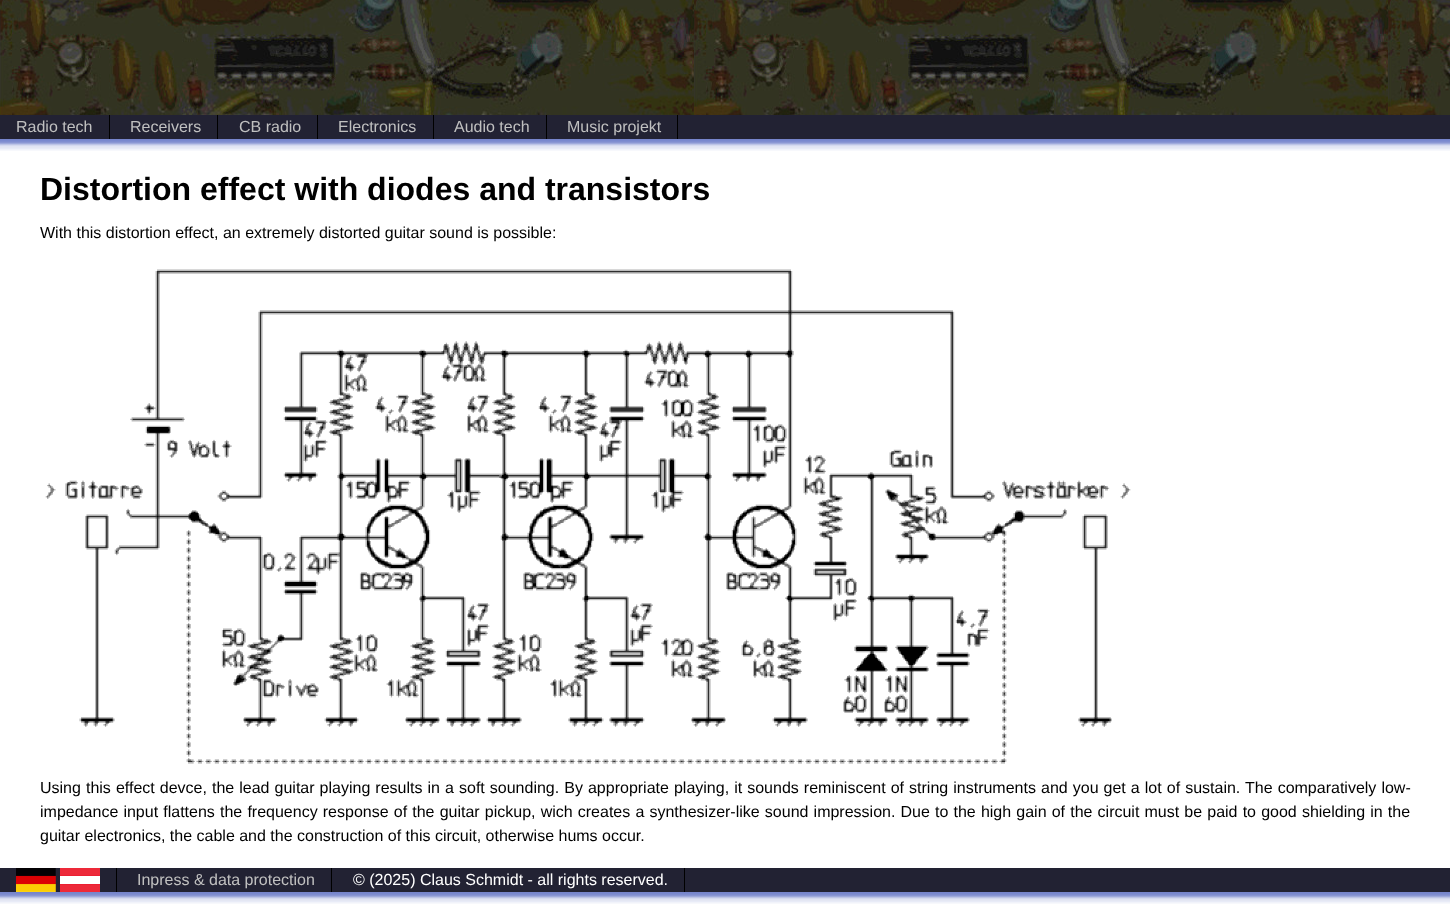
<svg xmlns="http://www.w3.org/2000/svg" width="1450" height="904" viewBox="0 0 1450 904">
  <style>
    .t1 { font: 16px Liberation Sans; fill: #c0c0c0; }
    .t2 { font: bold 32px Liberation Sans; fill: #000; }
    .t3 { font: 16px Liberation Sans; fill: #000; }
    .t4 { font: 16px Liberation Sans; fill: #fff; }
  </style>
  <rect width="100%" height="100%" fill="#fff"/>
  <image x="0" y="0" width="1450" height="115" href="images/1.png"/>
  <rect x="0" y="115" width="1450" height="24" fill="#223"/>
  <rect x="109" y="115" width="1" height="24" fill="#000"/>
  <text x="16" y="132" class="t1">Radio tech</text>
  <rect x="217" y="115" width="1" height="24" fill="#000"/>
  <text x="130" y="132" class="t1">Receivers</text>
  <rect x="317" y="115" width="1" height="24" fill="#000"/>
  <text x="239" y="132" class="t1">CB radio</text>
  <rect x="433" y="115" width="1" height="24" fill="#000"/>
  <text x="338" y="132" class="t1">Electronics</text>
  <rect x="546" y="115" width="1" height="24" fill="#000"/>
  <text x="454" y="132" class="t1">Audio tech</text>
  <rect x="677" y="115" width="1" height="24" fill="#000"/>
  <text x="567" y="132" class="t1">Music projekt</text>
  <image x="0" y="139" width="1450" height="12" href="images/2.png"/>
  <text x="40" y="200" class="t2">Distortion effect with diodes and transistors</text>
  <text x="40" y="238" class="t3">With this distortion effect, an extremely distorted guitar sound is possible:</text>
  <image x="45" y="269" width="1086" height="495" href="images/3.png"/>
  <text x="40" y="793" word-spacing="0.6" class="t3">Using this effect devce, the lead guitar playing results in a soft sounding. By appropriate playing, it sounds reminiscent of string instruments and you get a lot of sustain. The comparatively low-</text>
  <text x="40" y="817" word-spacing="0.7" class="t3">impedance input flattens the frequency response of the guitar pickup, wich creates a synthesizer-like sound impression. Due to the high gain of the circuit must be paid to good shielding in the</text>
  <text x="40" y="841" class="t3">guitar electronics, the cable and the construction of this circuit, otherwise hums occur.</text>
  <rect x="0" y="868" width="1450" height="24" fill="#223"/>
  <rect x="116" y="868" width="1" height="24" fill="#000"/>
  <image x="16" y="868" width="84" height="24" href="images/4.png"/>
  <rect x="331" y="868" width="1" height="24" fill="#000"/>
  <text x="137" y="885" class="t1">Inpress &amp; data protection</text>
  <rect x="684" y="868" width="1" height="24" fill="#000"/>
  <text x="353" y="885" class="t4">© (2025) Claus Schmidt - all rights reserved.</text>
  <image x="0" y="892" width="1450" height="12" href="images/2.png"/>
</svg>
